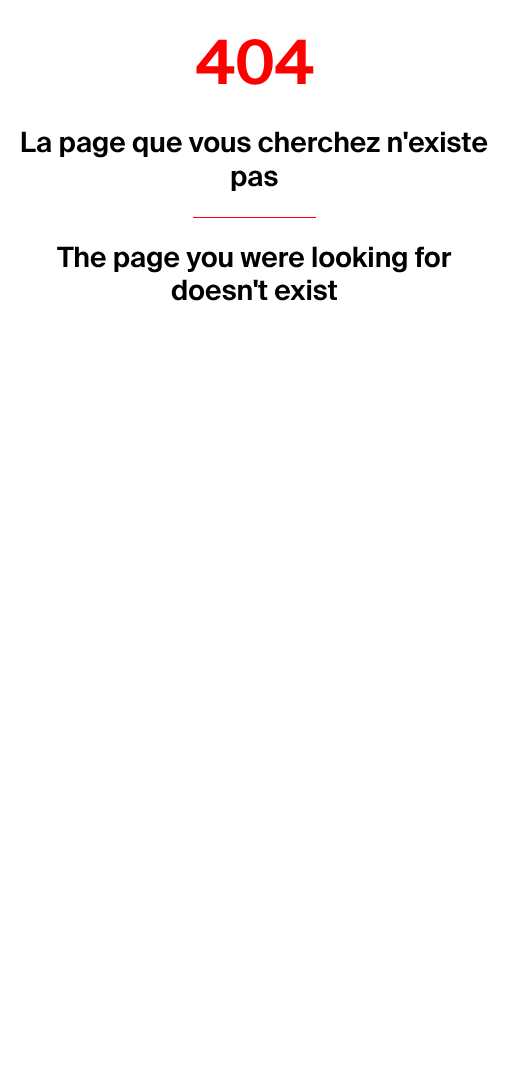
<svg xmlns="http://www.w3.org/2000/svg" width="509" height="1066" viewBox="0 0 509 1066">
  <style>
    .t1 { font: 600 61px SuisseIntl; fill: #f00; }
    .t2 { font: 600 28px SuisseIntl; fill: #000; }
  </style>
  <rect width="100%" height="100%" fill="#fff"/>
  <text x="196" y="84" class="t1">404</text>
  <text x="20" y="152" class="t2">La page que vous cherchez n'existe</text>
  <text x="230" y="186" class="t2">pas</text>
  <rect x="193" y="217" width="123" height="1" fill="#f00"/>
  <text x="57" y="267" class="t2">The page you were looking for</text>
  <text x="171" y="300" class="t2">doesn't exist</text>
</svg>
